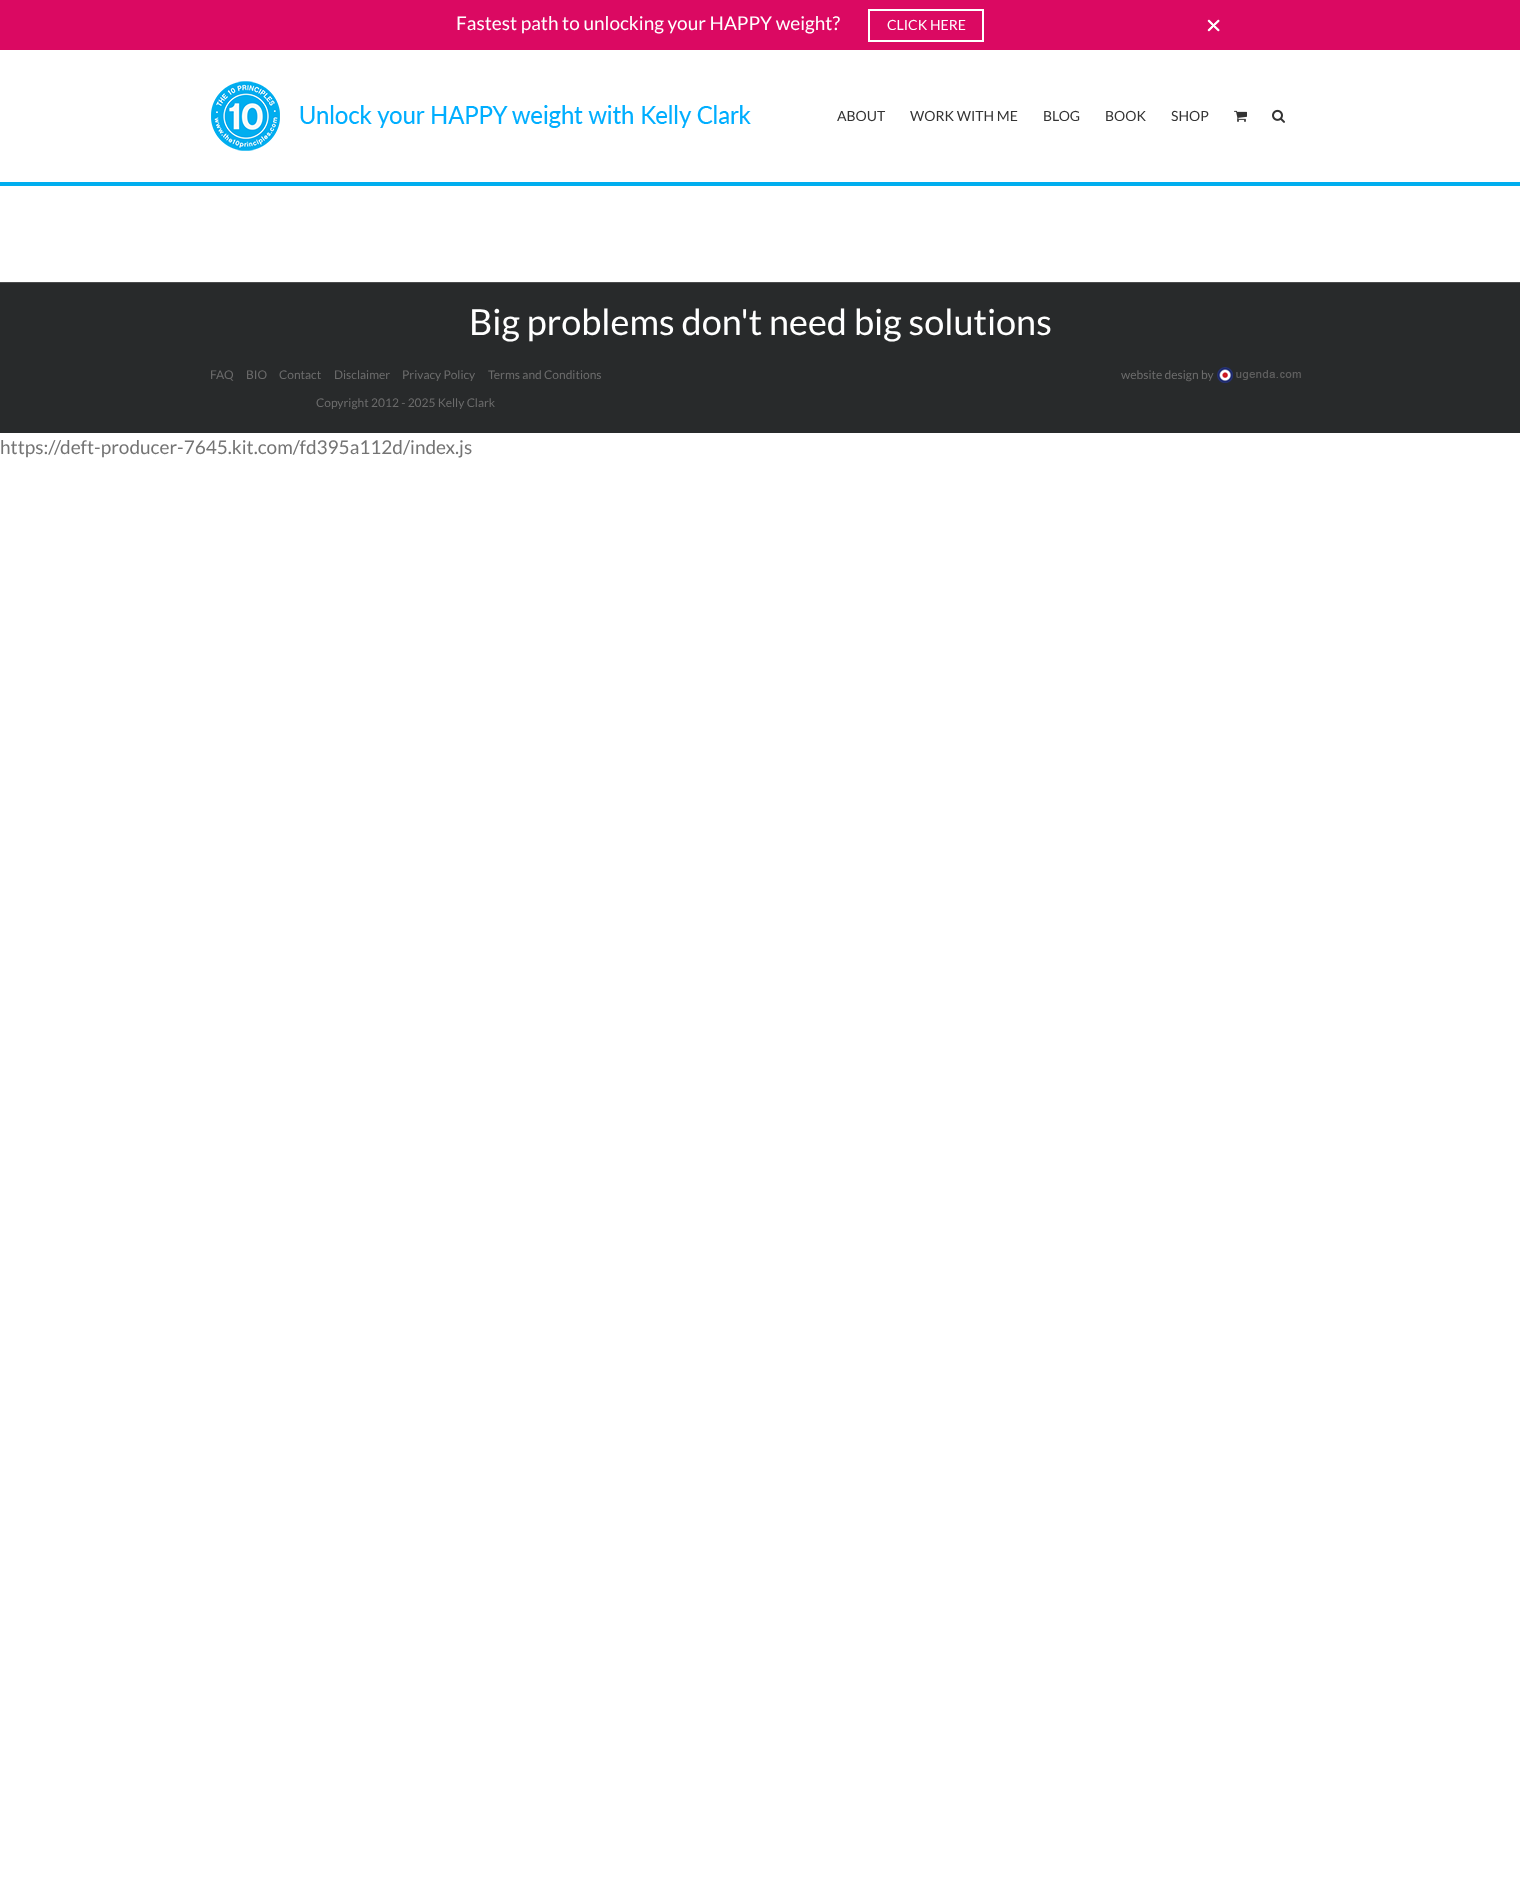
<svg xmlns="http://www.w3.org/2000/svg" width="1520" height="1882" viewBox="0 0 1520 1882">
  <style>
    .t1 { font: 19px Lato; fill: #fff; }
    .t2 { font: 14px Lato; fill: #fff; }
    .t3 { font: 14px Lato; fill: #333; }
    .t4 { font: 36px Lato; fill: #fff; }
    .t5 { font: 12px Lato; fill: #6c6c6c; }
    .t6 { font: 19px Lato; fill: #747474; }
  </style>
  <rect width="100%" height="100%" fill="#fff"/>
  <rect x="0" y="0" width="1520" height="50" fill="#db0962"/>
  <text x="456" y="30" class="t1">Fastest path to unlocking your HAPPY weight?</text>
  <rect x="869" y="10" width="114" height="31" fill="none" stroke="#fff" stroke-width="2"/>
  <text x="887" y="30" class="t2">CLICK HERE</text>
  <image x="1207" y="19" width="13" height="13" href="images/1.png"/>
  <rect x="0" y="182" width="1520" height="4" fill="#00aeef"/>
  <image x="211" y="81" width="540" height="70" href="images/2.png"/>
  <text x="837" y="121" class="t3">ABOUT</text>
  <text x="910" y="121" class="t3">WORK WITH ME</text>
  <text x="1043" y="121" class="t3">BLOG</text>
  <text x="1105" y="121" class="t3">BOOK</text>
  <text x="1171" y="121" class="t3">SHOP</text>
  <image x="1234" y="110" width="13" height="12" href="images/3.png"/>
  <image x="1272" y="109" width="13" height="14" href="images/4.png"/>
  <rect x="0" y="283" width="1520" height="150" fill="#282a2b"/>
  <rect x="0" y="282" width="1520" height="1" fill="#4b4c4d"/>
  <text x="469" y="335" class="t4">Big problems don't need big solutions</text>
  <text x="210" y="379" class="t5">FAQ</text>
  <text x="246" y="379" class="t5">BIO</text>
  <text x="279" y="379" class="t5">Contact</text>
  <text x="334" y="379" class="t5">Disclaimer</text>
  <text x="402" y="379" class="t5">Privacy Policy</text>
  <text x="488" y="379" class="t5">Terms and Conditions</text>
  <text x="316" y="407" class="t5">Copyright 2012 - 2025 Kelly Clark</text>
  <text x="1121" y="379" class="t5">website design by</text>
  <image x="1217" y="367" width="84" height="16" href="images/5.png"/>
  <text x="0" y="454" class="t6">https://deft-producer-7645.kit.com/fd395a112d/index.js</text>
</svg>
